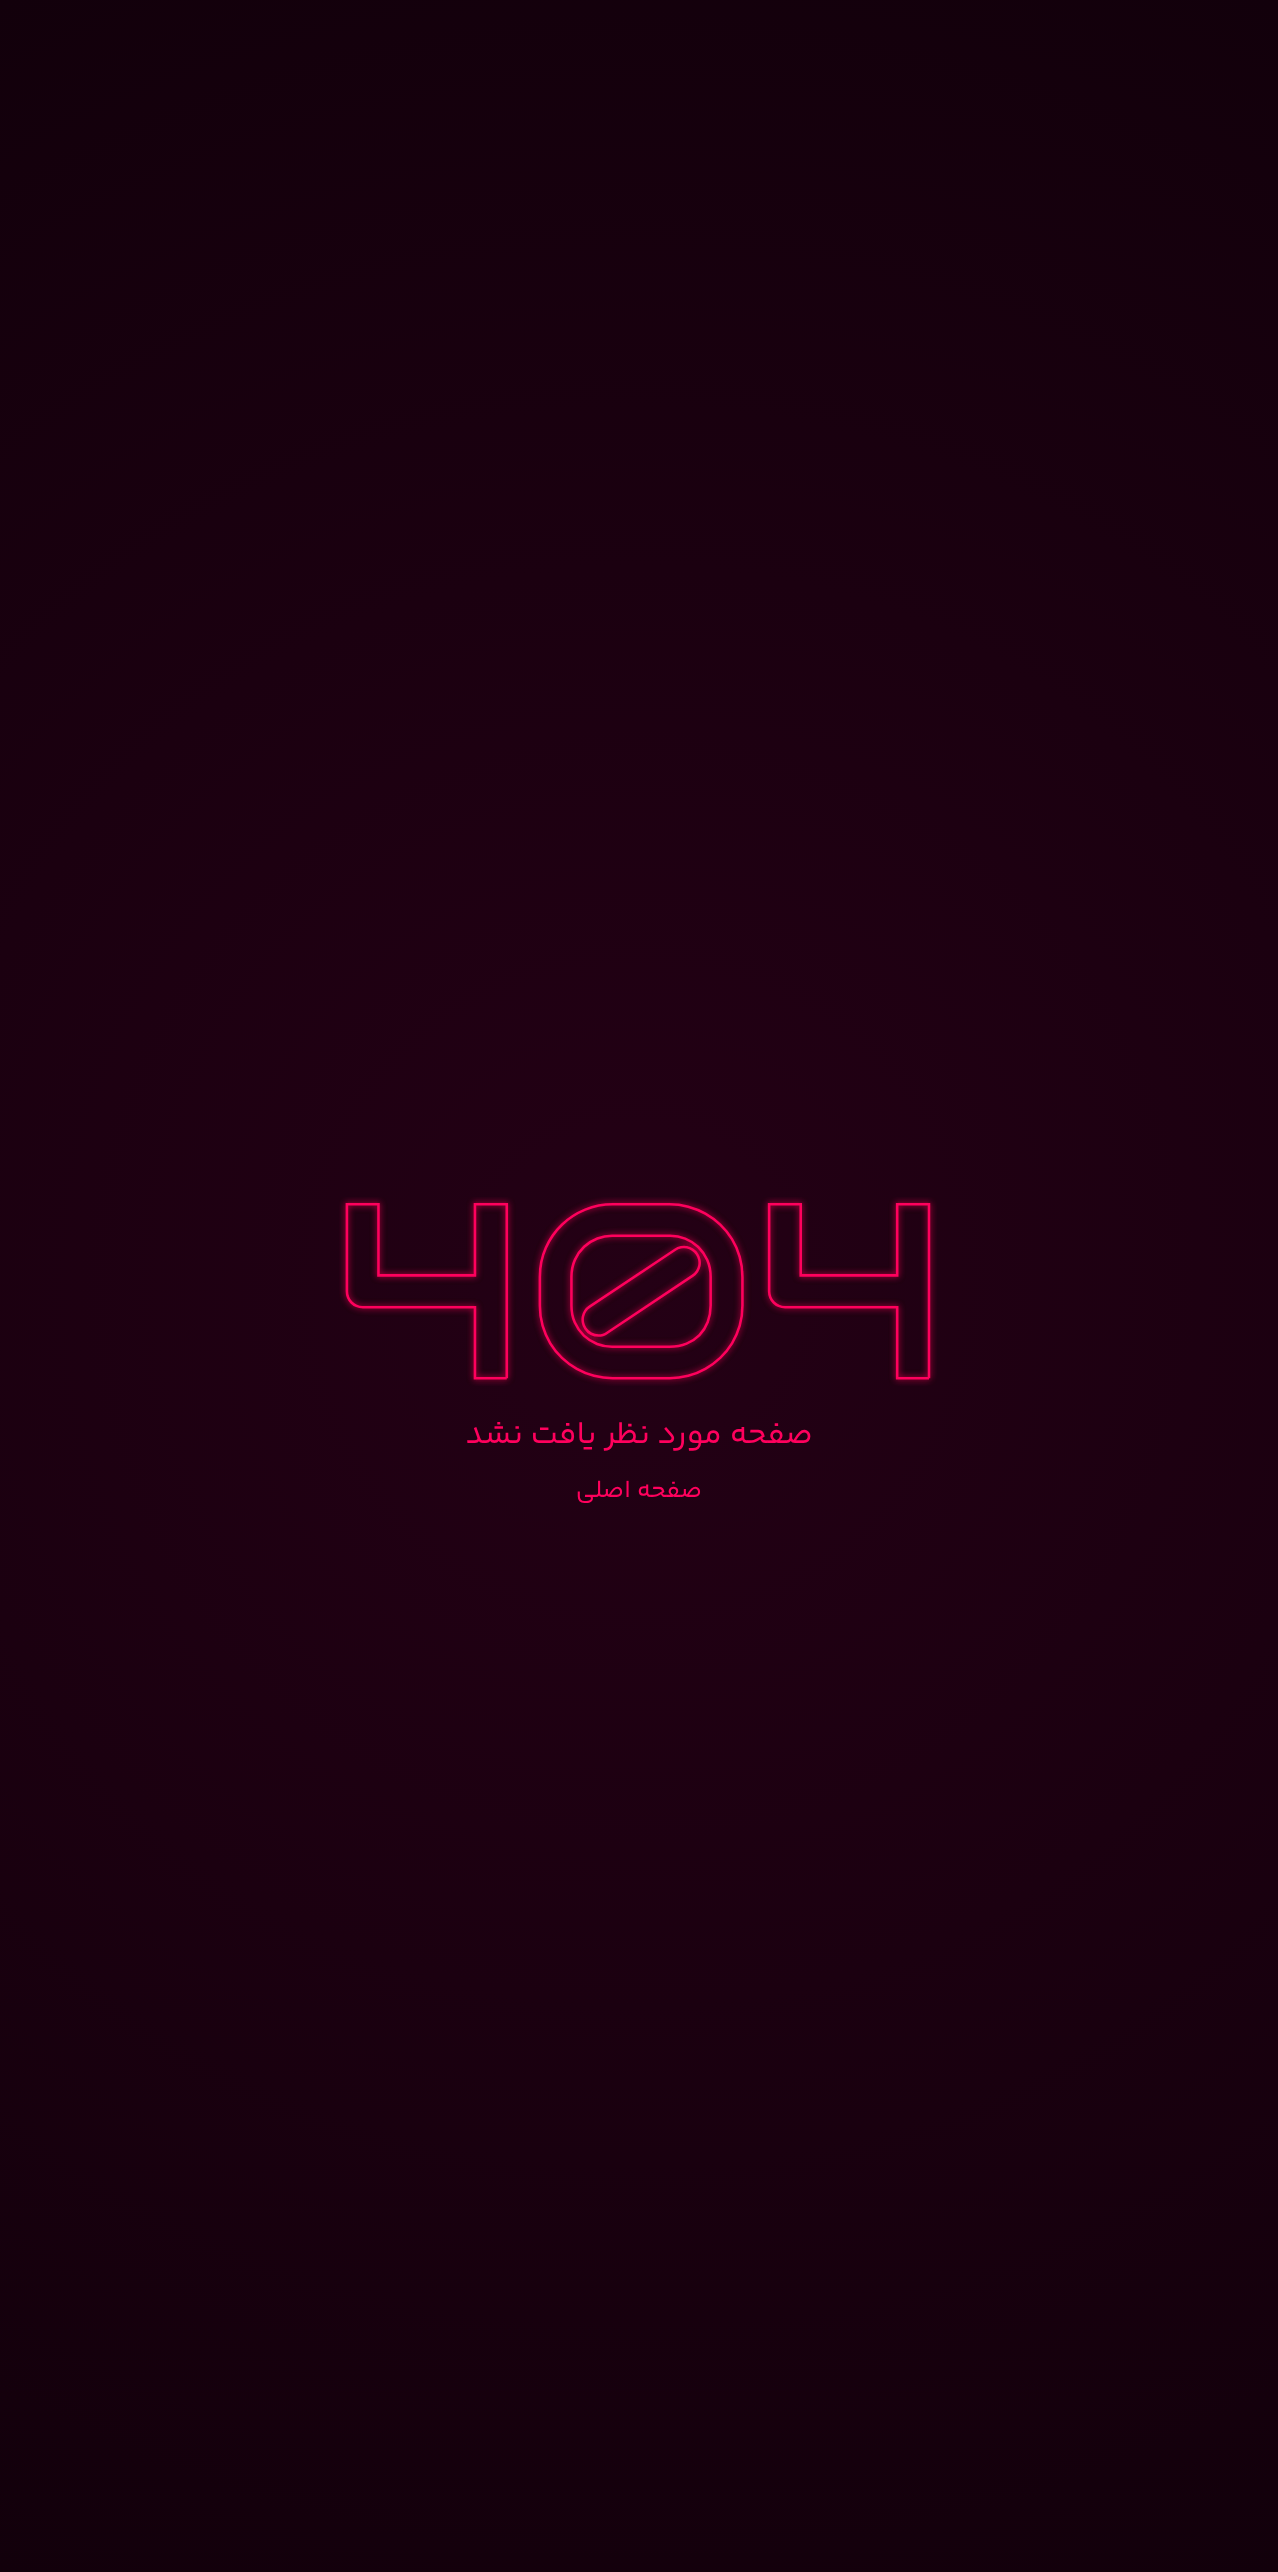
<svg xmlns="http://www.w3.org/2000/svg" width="1278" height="2572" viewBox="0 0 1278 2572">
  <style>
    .t1 { font: 32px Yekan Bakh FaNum; direction: rtl; fill: #ff005d; }
    .t2 { font: 25px Yekan Bakh FaNum; direction: rtl; fill: #ff005d; }
  </style>
  <defs>
    <radialGradient id="g1" gradientUnits="userSpaceOnUse" cx="639" cy="1286" r="1436"><stop offset="0" stop-color="#240015"/><stop offset="1" stop-color="#12000b"/></radialGradient>
  </defs>
  <rect width="100%" height="100%" fill="#fff"/>
  <rect x="0" y="0" width="1278" height="2572" fill="url(#g1)"/>
  <image x="342" y="1200" width="592" height="183" href="images/2.png"/>
  <image x="339" y="1197" width="598" height="189" href="images/1.png"/>
  <text x="813" y="1443" class="t1">صفحه مورد نظر یافت نشد</text>
  <text x="702" y="1497" class="t2">صفحه اصلی</text>
</svg>
